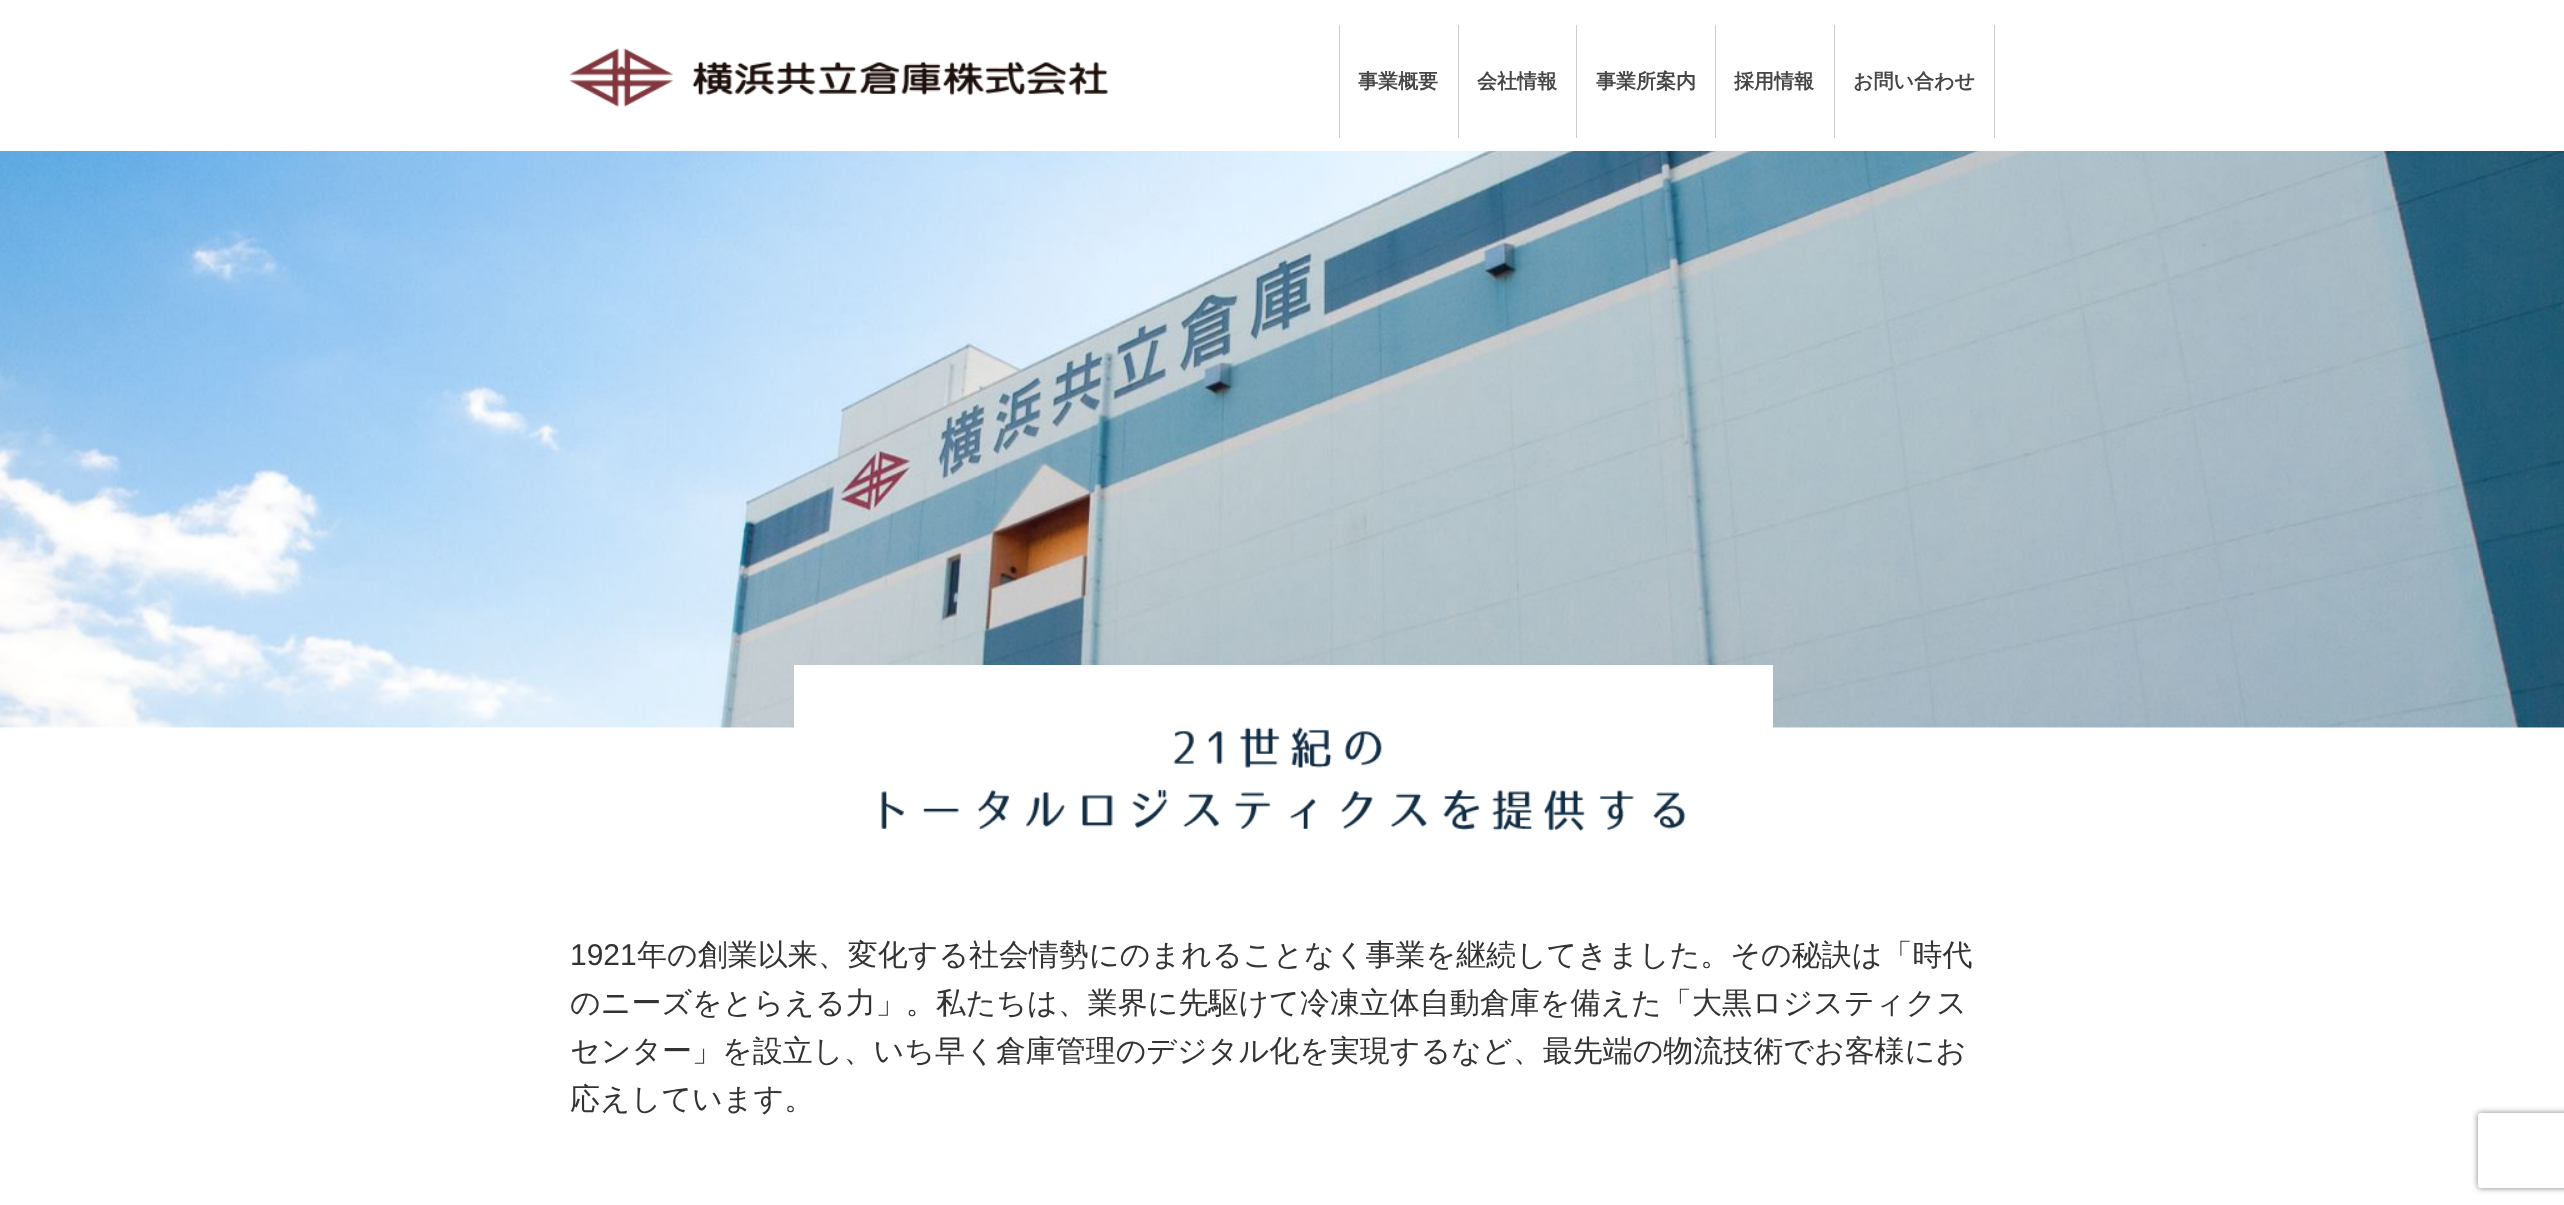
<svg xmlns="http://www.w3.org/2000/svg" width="2564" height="1205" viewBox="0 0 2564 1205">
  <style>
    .t1 { font: bold 20px WenQuanYi Zen Hei; fill: #464646; }
    .t2 { font: 30px Liberation Sans; fill: #333; }
    .t3 { font: 500 30px WenQuanYi Zen Hei; fill: #333; }
  </style>
  <defs>
    <clipPath id="clip1"><path d="M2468 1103H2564V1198H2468ZM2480.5 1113H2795.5C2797 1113 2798 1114 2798 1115.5V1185.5C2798 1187 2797 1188 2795.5 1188H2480.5C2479 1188 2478 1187 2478 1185.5V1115.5C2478 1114 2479 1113 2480.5 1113Z" clip-rule="evenodd"/></clipPath>
  </defs>
  <rect width="100%" height="100%" fill="#fff"/>
  <image x="570" y="48" width="538" height="59" href="images/1.png"/>
  <rect x="1339" y="25" width="1" height="113" fill="#ccc"/>
  <text x="1358" y="88" class="t1">事業概要</text>
  <rect x="1458" y="25" width="1" height="113" fill="#ccc"/>
  <text x="1477" y="88" class="t1">会社情報</text>
  <rect x="1576" y="25" width="1" height="113" fill="#ccc"/>
  <text x="1596" y="88" class="t1">事業所案内</text>
  <rect x="1715" y="25" width="1" height="113" fill="#ccc"/>
  <text x="1734" y="88" class="t1">採用情報</text>
  <rect x="1994" y="25" width="1" height="113" fill="#ccc"/>
  <rect x="1834" y="25" width="1" height="113" fill="#ccc"/>
  <text x="1853" y="88" class="t1">お問い合わせ</text>
  <image x="0" y="151" width="2564" height="577" href="images/2.png"/>
  <rect x="794" y="665" width="979" height="63" fill="#fff"/>
  <image x="881" y="727" width="805" height="105" href="images/3.png"/>
  <text x="570" y="965" class="t2">1921</text>
  <text x="637" y="965" class="t3">年の創業以来、変化する社会情勢にのまれることなく事業を継続してきました。その秘訣は「時代</text>
  <text x="570" y="1013" class="t3">のニーズをとらえる力」。私たちは、業界に先駆けて冷凍立体自動倉庫を備えた「大黒ロジスティクス</text>
  <text x="570" y="1061" class="t3">センター」を設立し、いち早く倉庫管理のデジタル化を実現するなど、最先端の物流技術でお客様にお</text>
  <text x="570" y="1109" class="t3">応えしています。</text>
  <g clip-path="url(#clip1)">
    <rect x="2478" y="1113" width="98" height="75" rx="2.5" fill="#808080" filter="blur(3px)"/>
  </g>
</svg>
